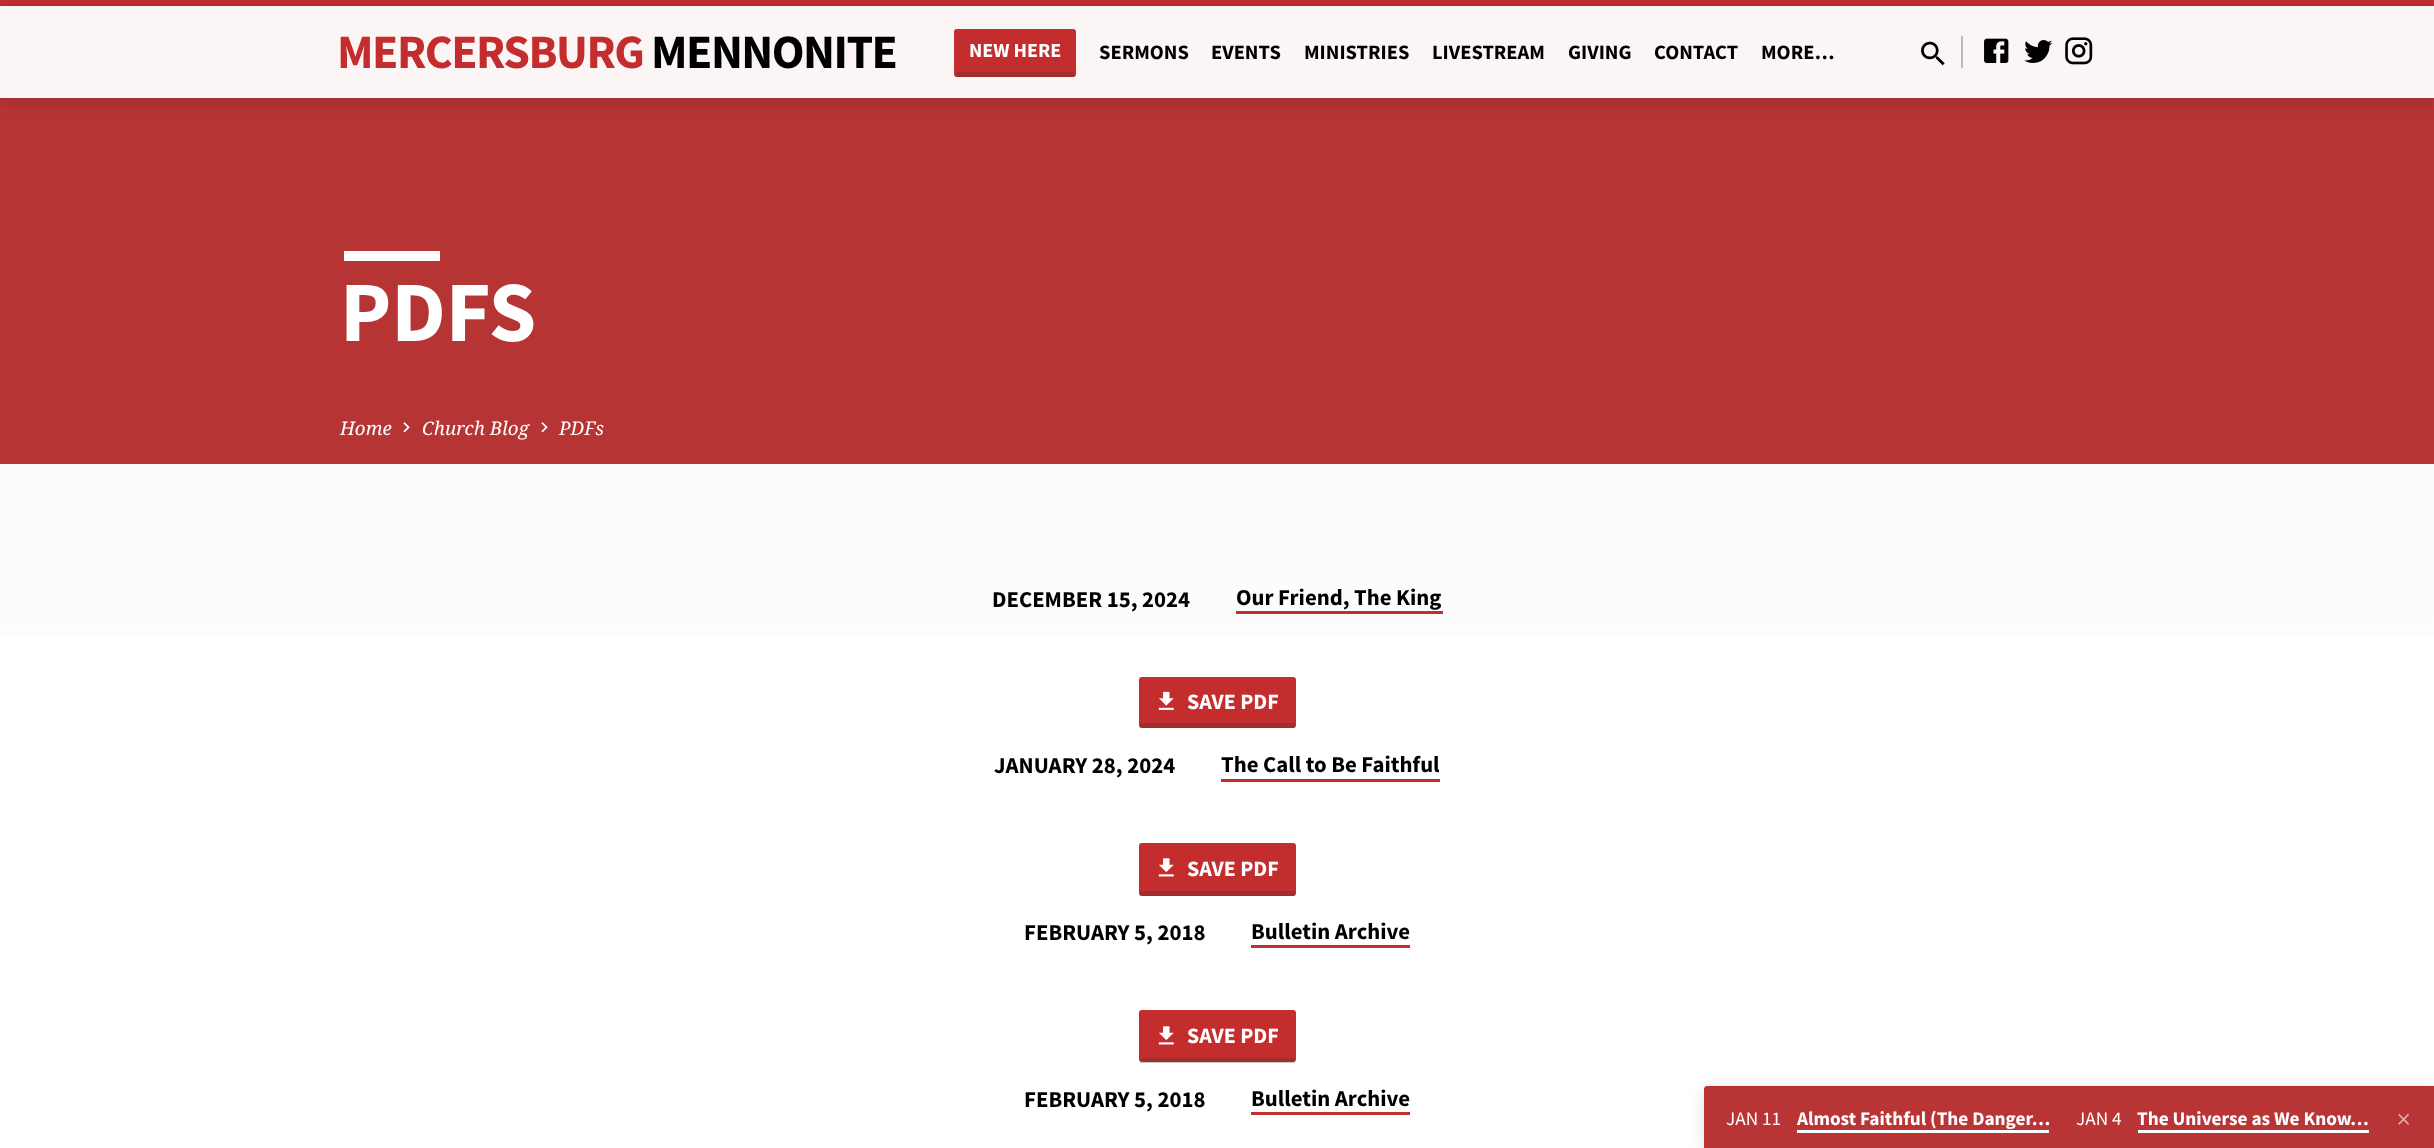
<svg xmlns="http://www.w3.org/2000/svg" width="2434" height="1148" viewBox="0 0 2434 1148">
  <style>
    .t1 { font: bold 48px Source Sans Pro; letter-spacing: -1.5px; fill: #c42d2d; }
    .t2 { font: bold 48px Source Sans Pro; letter-spacing: -1.5px; fill: #000; }
    .t3 { font: bold 20px Source Sans Pro; fill: #fff; }
    .t4 { font: bold 20.5px Source Sans Pro; fill: #000; }
    .t5 { font: bold 86px Source Sans Pro; fill: #fff; }
    .t6 { font: italic 18.75px Noto Serif; fill: #fff; }
    .t7 { font: bold 22.75px Source Sans Pro; fill: #000; }
    .t8 { font: bold 22px Source Sans Pro; fill: #fff; }
    .t9 { font: 19.25px Source Sans Pro; fill: #fff; }
    .t10 { font: bold 19.25px Source Sans Pro; fill: #fff; }
  </style>
  <defs>
    <clipPath id="clip1"><path d="M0 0H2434V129H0ZM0 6H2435V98H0Z" clip-rule="evenodd"/></clipPath>
    <linearGradient id="g1" gradientUnits="userSpaceOnUse" x1="1217" y1="463" x2="1217" y2="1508"><stop offset="0.14" stop-color="#fcfcfc"/><stop offset="0.29" stop-color="#fff"/></linearGradient>
    <clipPath id="clip2"><path d="M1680 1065H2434V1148H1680ZM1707 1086H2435V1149H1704V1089C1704 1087.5 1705.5 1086 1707 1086Z" clip-rule="evenodd"/></clipPath>
  </defs>
  <rect width="100%" height="100%" fill="#fff"/>
  <rect x="0" y="0" width="2434" height="6" fill="#c32d2d"/>
  <rect x="0" y="6" width="2434" height="92" fill="#fbf5f5"/>
  <rect x="0" y="98" width="2434" height="366" fill="#b73434"/>
  <g clip-path="url(#clip1)">
    <rect x="0" y="9" width="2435" height="92" fill="#00000024" filter="blur(9px)"/>
  </g>
  <text x="337" y="68" class="t1">MERCERSBURG</text>
  <text x="651" y="68" class="t2">MENNONITE</text>
  <rect x="954" y="29" width="122" height="48" rx="3" fill="#c42d2d"/>
  <rect x="956" y="72" width="118" height="5" fill="#32323240"/>
  <text x="969" y="57" class="t3">NEW HERE</text>
  <text x="1099" y="59" class="t4">SERMONS</text>
  <text x="1211" y="59" class="t4">EVENTS</text>
  <text x="1304" y="59" class="t4">MINISTRIES</text>
  <text x="1432" y="59" class="t4">LIVESTREAM</text>
  <text x="1568" y="59" class="t4">GIVING</text>
  <text x="1654" y="59" class="t4">CONTACT</text>
  <text x="1761" y="59" class="t4">MORE…</text>
  <image x="1921" y="41" width="24" height="25" href="images/1.png"/>
  <rect x="1961" y="36" width="2" height="32" fill="#bbb"/>
  <image x="1984" y="38" width="25" height="25" href="images/2.png"/>
  <image x="2024" y="40" width="29" height="23" href="images/3.png"/>
  <image x="2065" y="37" width="28" height="28" href="images/4.png"/>
  <rect x="344" y="251" width="96" height="10" fill="#fff"/>
  <text x="340" y="341" class="t5">PDFS</text>
  <text x="340" y="435" class="t6">Home</text>
  <image x="403" y="422" width="7" height="11" href="images/5.png"/>
  <text x="422" y="435" class="t6">Church Blog</text>
  <image x="541" y="422" width="7" height="11" href="images/5.png"/>
  <text x="559" y="435" class="t6">PDFs</text>
  <rect x="0" y="464" width="2434" height="171" fill="url(#g1)"/>
  <text x="992" y="607" class="t7">DECEMBER 15, 2024</text>
  <text x="1236" y="605" class="t7">Our Friend, The King</text>
  <rect x="1236" y="611" width="207" height="3" fill="#c42d2d"/>
  <rect x="1139" y="677" width="157" height="51" rx="3" fill="#c42d2d"/>
  <rect x="1140" y="723" width="155" height="5" fill="#32323240"/>
  <image x="1158" y="691" width="16" height="19" href="images/6.png"/>
  <text x="1187" y="709" class="t8">SAVE PDF</text>
  <text x="994" y="773" class="t7">JANUARY 28, 2024</text>
  <text x="1221" y="772" class="t7">The Call to Be Faithful</text>
  <rect x="1221" y="779" width="219" height="3" fill="#c42d2d"/>
  <rect x="1139" y="843" width="157" height="53" rx="3" fill="#c42d2d"/>
  <rect x="1140" y="891" width="155" height="5" fill="#32323240"/>
  <image x="1158" y="858" width="16" height="19" href="images/7.png"/>
  <text x="1187" y="876" class="t8">SAVE PDF</text>
  <text x="1024" y="940" class="t7">FEBRUARY 5, 2018</text>
  <text x="1251" y="939" class="t7">Bulletin Archive</text>
  <rect x="1251" y="945" width="159" height="3" fill="#c42d2d"/>
  <rect x="1139" y="1010" width="157" height="52" rx="3" fill="#c42d2d"/>
  <rect x="1140" y="1058" width="155" height="5" fill="#32323240"/>
  <image x="1158" y="1026" width="16" height="19" href="images/7.png"/>
  <text x="1187" y="1043" class="t8">SAVE PDF</text>
  <text x="1024" y="1107" class="t7">FEBRUARY 5, 2018</text>
  <text x="1251" y="1106" class="t7">Bulletin Archive</text>
  <rect x="1251" y="1112" width="159" height="3" fill="#c42d2d"/>
  <g clip-path="url(#clip2)">
    <rect x="1704" y="1089" width="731" height="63" rx="3" fill="#0000001f" filter="blur(7.5px)"/>
  </g>
  <path d="M1707 1086H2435V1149H1704V1089C1704 1087.5 1705.5 1086 1707 1086Z" fill="#c42d2df2"/>
  <rect x="1704" y="1086" width="730" height="62" fill="#00000012"/>
  <text x="1726" y="1125" class="t9">JAN 11</text>
  <text x="1797" y="1125" class="t10">Almost Faithful (The Danger…</text>
  <rect x="1797" y="1130" width="252" height="3" fill="#fff"/>
  <text x="2076" y="1125" class="t9">JAN 4</text>
  <text x="2137" y="1125" class="t10">The Universe as We Know…</text>
  <rect x="2138" y="1130" width="231" height="3" fill="#fff"/>
  <image x="2398" y="1113" width="11" height="12" href="images/8.png"/>
</svg>
